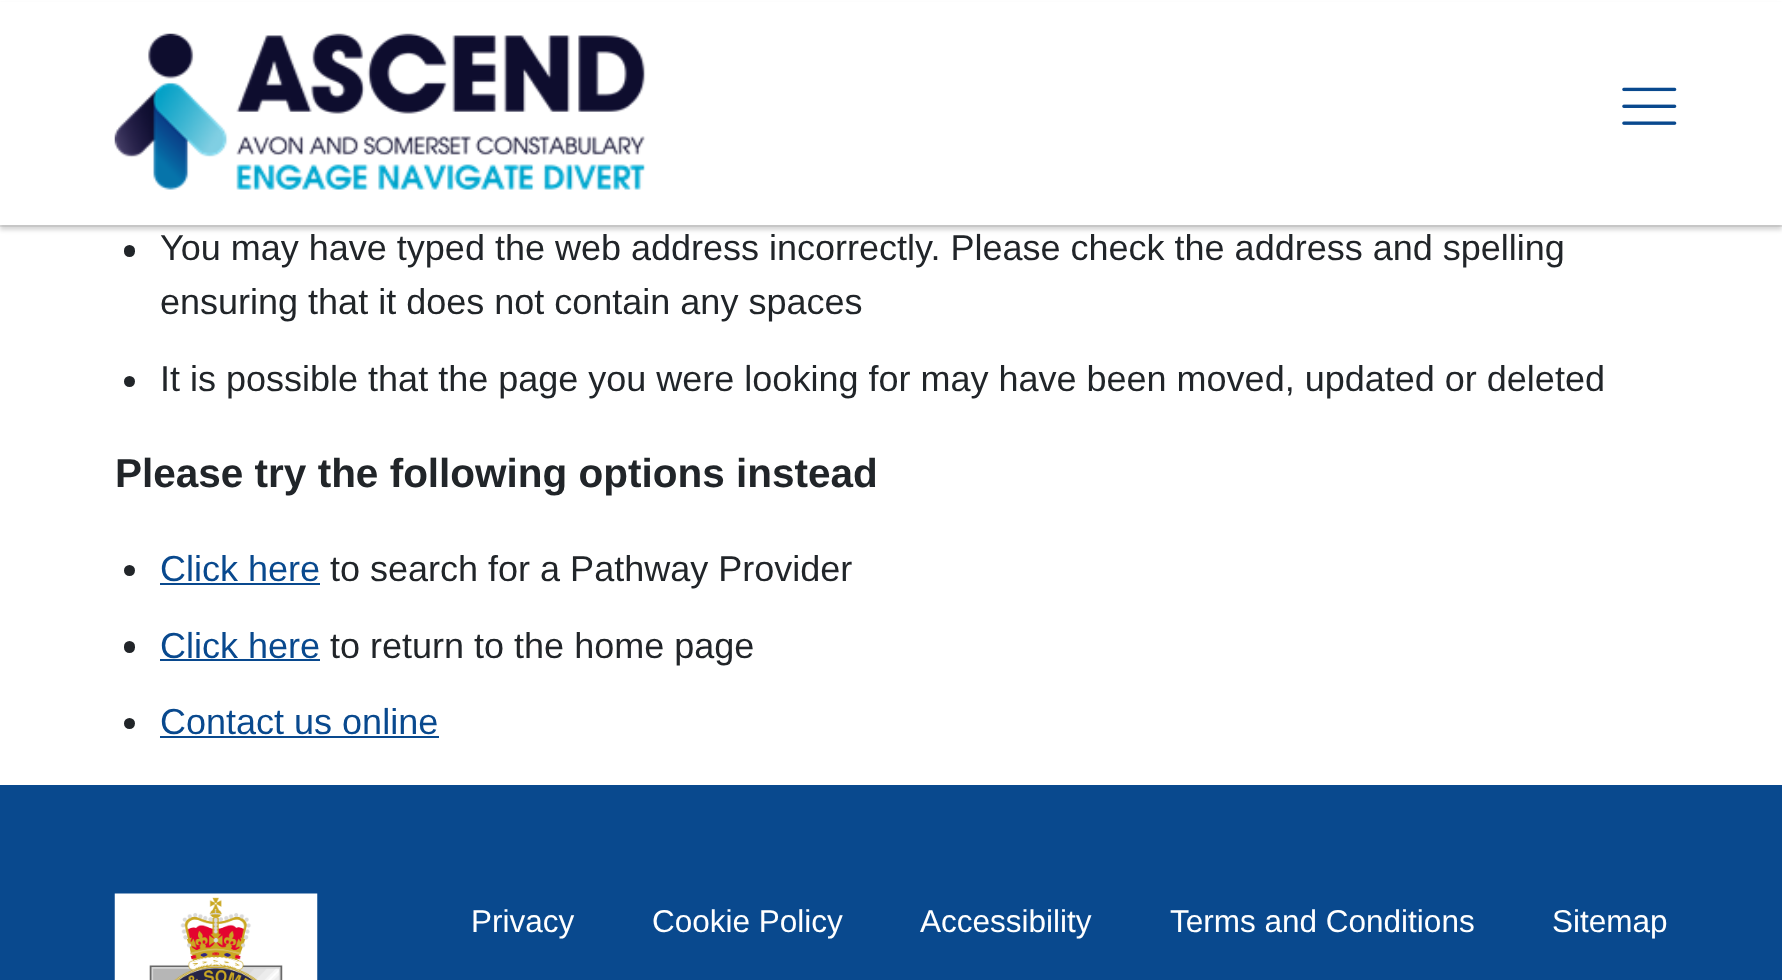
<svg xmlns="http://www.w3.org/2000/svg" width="1782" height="980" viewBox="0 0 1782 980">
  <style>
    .t1 { font: 36px Liberation Sans; fill: #212529; }
    .t2 { font: bold 40.5px Liberation Sans; fill: #212529; }
    .t3 { font: 36px Liberation Sans; fill: #09498e; }
    .t4 { font: 31.5px Liberation Sans; fill: #fff; }
  </style>
  <rect width="100%" height="100%" fill="#fff"/>
  <rect x="-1" y="-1" width="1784" height="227" fill="none" stroke="#ebebeb" stroke-width="2"/>
  <rect x="0" y="5" width="1782" height="225" fill="#00000029" filter="blur(2px)"/>
  <rect x="0" y="2" width="1782" height="223" fill="#fff"/>
  <image x="114" y="33" width="532" height="157" href="images/1.png"/>
  <image x="1622" y="87" width="55" height="38" href="images/2.png"/>
  <rect x="124" y="245" width="11" height="12" rx="5.5" fill="#212529"/>
  <text x="160" y="260" class="t1">You may have typed the web address incorrectly. Please check the address and spelling</text>
  <text x="160" y="314" class="t1">ensuring that it does not contain any spaces</text>
  <circle cx="129.5" cy="381.5" r="5.5" fill="#212529"/>
  <text x="160" y="391" class="t1">It is possible that the page you were looking for may have been moved, updated or deleted</text>
  <text x="115" y="487" class="t2">Please try the following options instead</text>
  <circle cx="129.5" cy="570.5" r="5.5" fill="#212529"/>
  <text x="160" y="581" class="t3">Click here</text>
  <rect x="160" y="583" width="160" height="2" fill="#09498e"/>
  <text x="330" y="581" class="t1">to search for a Pathway Provider</text>
  <rect x="124" y="641" width="11" height="12" rx="5.5" fill="#212529"/>
  <text x="160" y="658" class="t3">Click here</text>
  <rect x="160" y="659" width="160" height="2" fill="#09498e"/>
  <text x="330" y="658" class="t1">to return to the home page</text>
  <circle cx="129.5" cy="723.5" r="5.5" fill="#212529"/>
  <text x="160" y="734" class="t3">Contact us online</text>
  <rect x="160" y="736" width="279" height="2" fill="#09498e"/>
  <rect x="0" y="785" width="1782" height="195" fill="#09498e"/>
  <image x="114" y="893" width="204" height="87" href="images/3.png"/>
  <text x="471" y="932" class="t4">Privacy</text>
  <text x="652" y="932" class="t4">Cookie Policy</text>
  <text x="920" y="932" class="t4">Accessibility</text>
  <text x="1170" y="932" class="t4">Terms and Conditions</text>
  <text x="1552" y="932" class="t4">Sitemap</text>
</svg>
